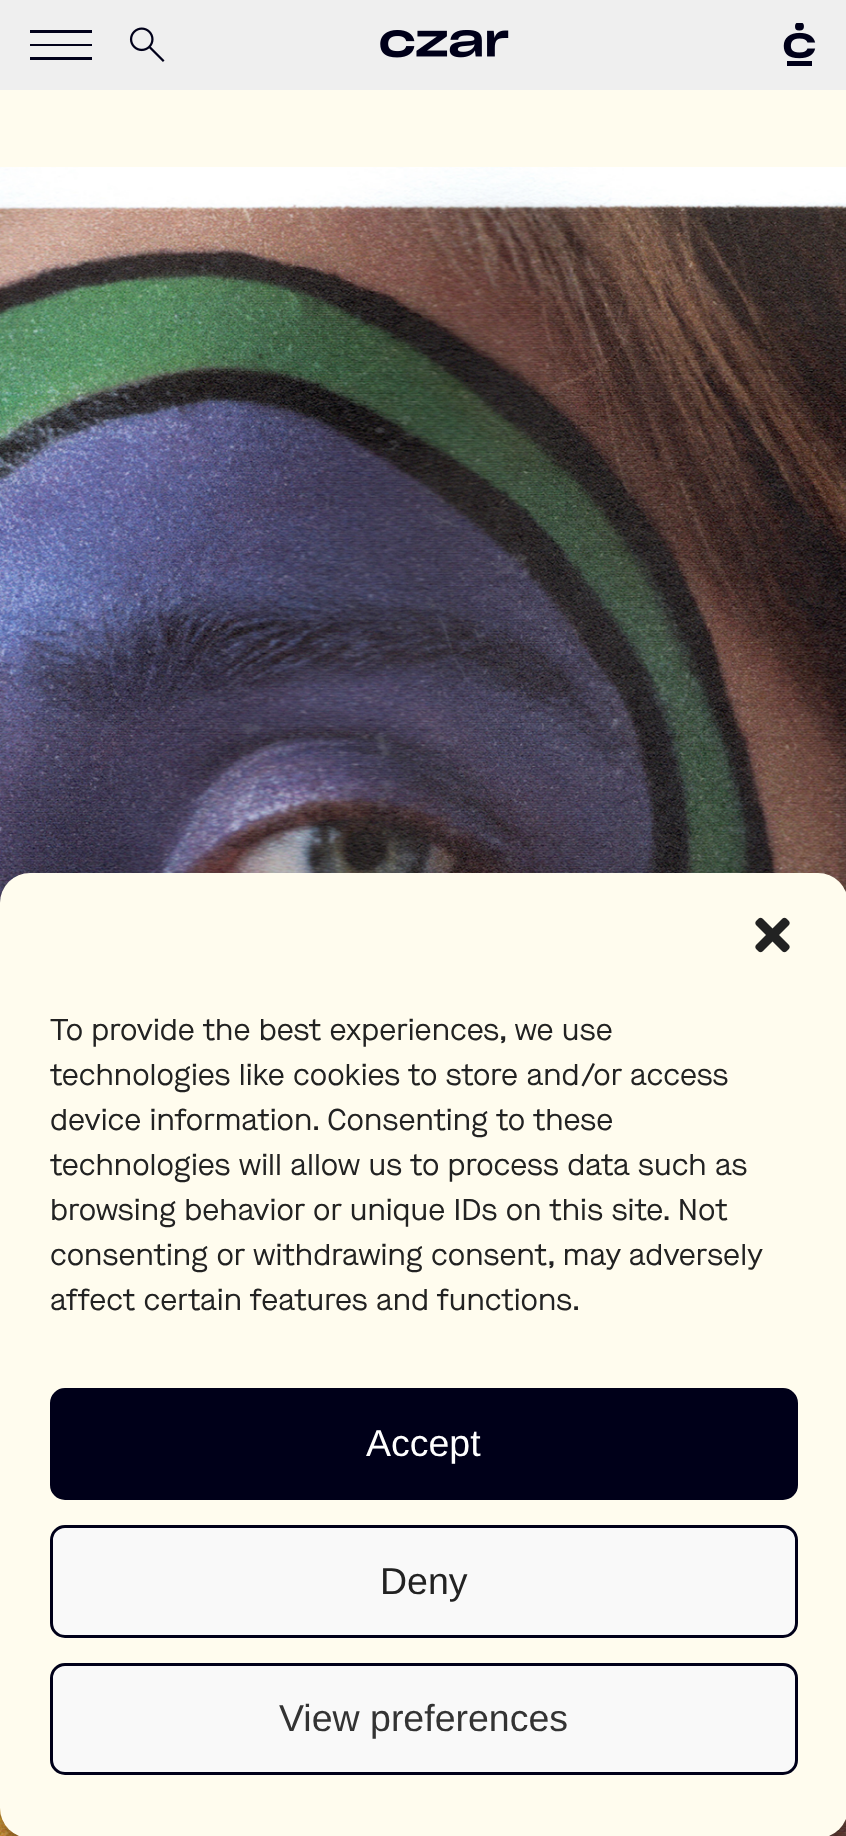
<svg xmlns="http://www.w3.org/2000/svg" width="846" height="1836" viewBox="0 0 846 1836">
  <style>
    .t1 { font: 30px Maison; fill: #222; }
    .t2 { font: 37.5px Liberation Sans; fill: #fff; }
    .t3 { font: 37.5px Liberation Sans; fill: #222; }
    .t4 { font: 37.5px Liberation Sans; fill: #333; }
  </style>
  <rect width="100%" height="100%" fill="#fffcee"/>
  <rect x="0" y="0" width="846" height="90" fill="#efefef"/>
  <rect x="30" y="30" width="62" height="3" fill="#000019"/>
  <rect x="30" y="44" width="62" height="2" fill="#000019"/>
  <rect x="30" y="57" width="62" height="3" fill="#000019"/>
  <image x="129" y="27" width="36" height="35" href="images/1.png"/>
  <image x="380" y="30" width="129" height="28" href="images/2.png"/>
  <image x="783" y="23" width="33" height="43" href="images/3.png"/>
  <image x="0" y="167" width="846" height="1669" href="images/4.png"/>
  <rect x="0" y="888" width="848" height="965" rx="30" fill="#0000003b" filter="blur(7.5px)"/>
  <rect x="0" y="898" width="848" height="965" rx="30" fill="#00000030" filter="blur(25px)"/>
  <rect x="0" y="873" width="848" height="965" rx="30" fill="#fffcee"/>
  <image x="755" y="917" width="35" height="36" href="images/5.png"/>
  <text x="50" y="1040" class="t1">To provide the best experiences, we use</text>
  <text x="50" y="1085" class="t1">technologies like cookies to store and/or access</text>
  <text x="50" y="1130" class="t1">device information. Consenting to these</text>
  <text x="50" y="1175" class="t1">technologies will allow us to process data such as</text>
  <text x="50" y="1220" class="t1">browsing behavior or unique IDs on this site. Not</text>
  <text x="50" y="1265" class="t1">consenting or withdrawing consent, may adversely</text>
  <text x="50" y="1310" class="t1">affect certain features and functions.</text>
  <rect x="51.5" y="1389.5" width="745" height="109" rx="13.5" fill="#000019" stroke="#000019" stroke-width="3"/>
  <text x="366" y="1456" class="t2">Accept</text>
  <rect x="51.5" y="1526.5" width="745" height="110" rx="13.5" fill="#f9f9f9" stroke="#000019" stroke-width="3"/>
  <text x="380" y="1594" class="t3">Deny</text>
  <rect x="51.5" y="1664.5" width="745" height="109" rx="13.5" fill="#f9f9f9" stroke="#000019" stroke-width="3"/>
  <text x="279" y="1731" class="t4">View preferences</text>
</svg>
